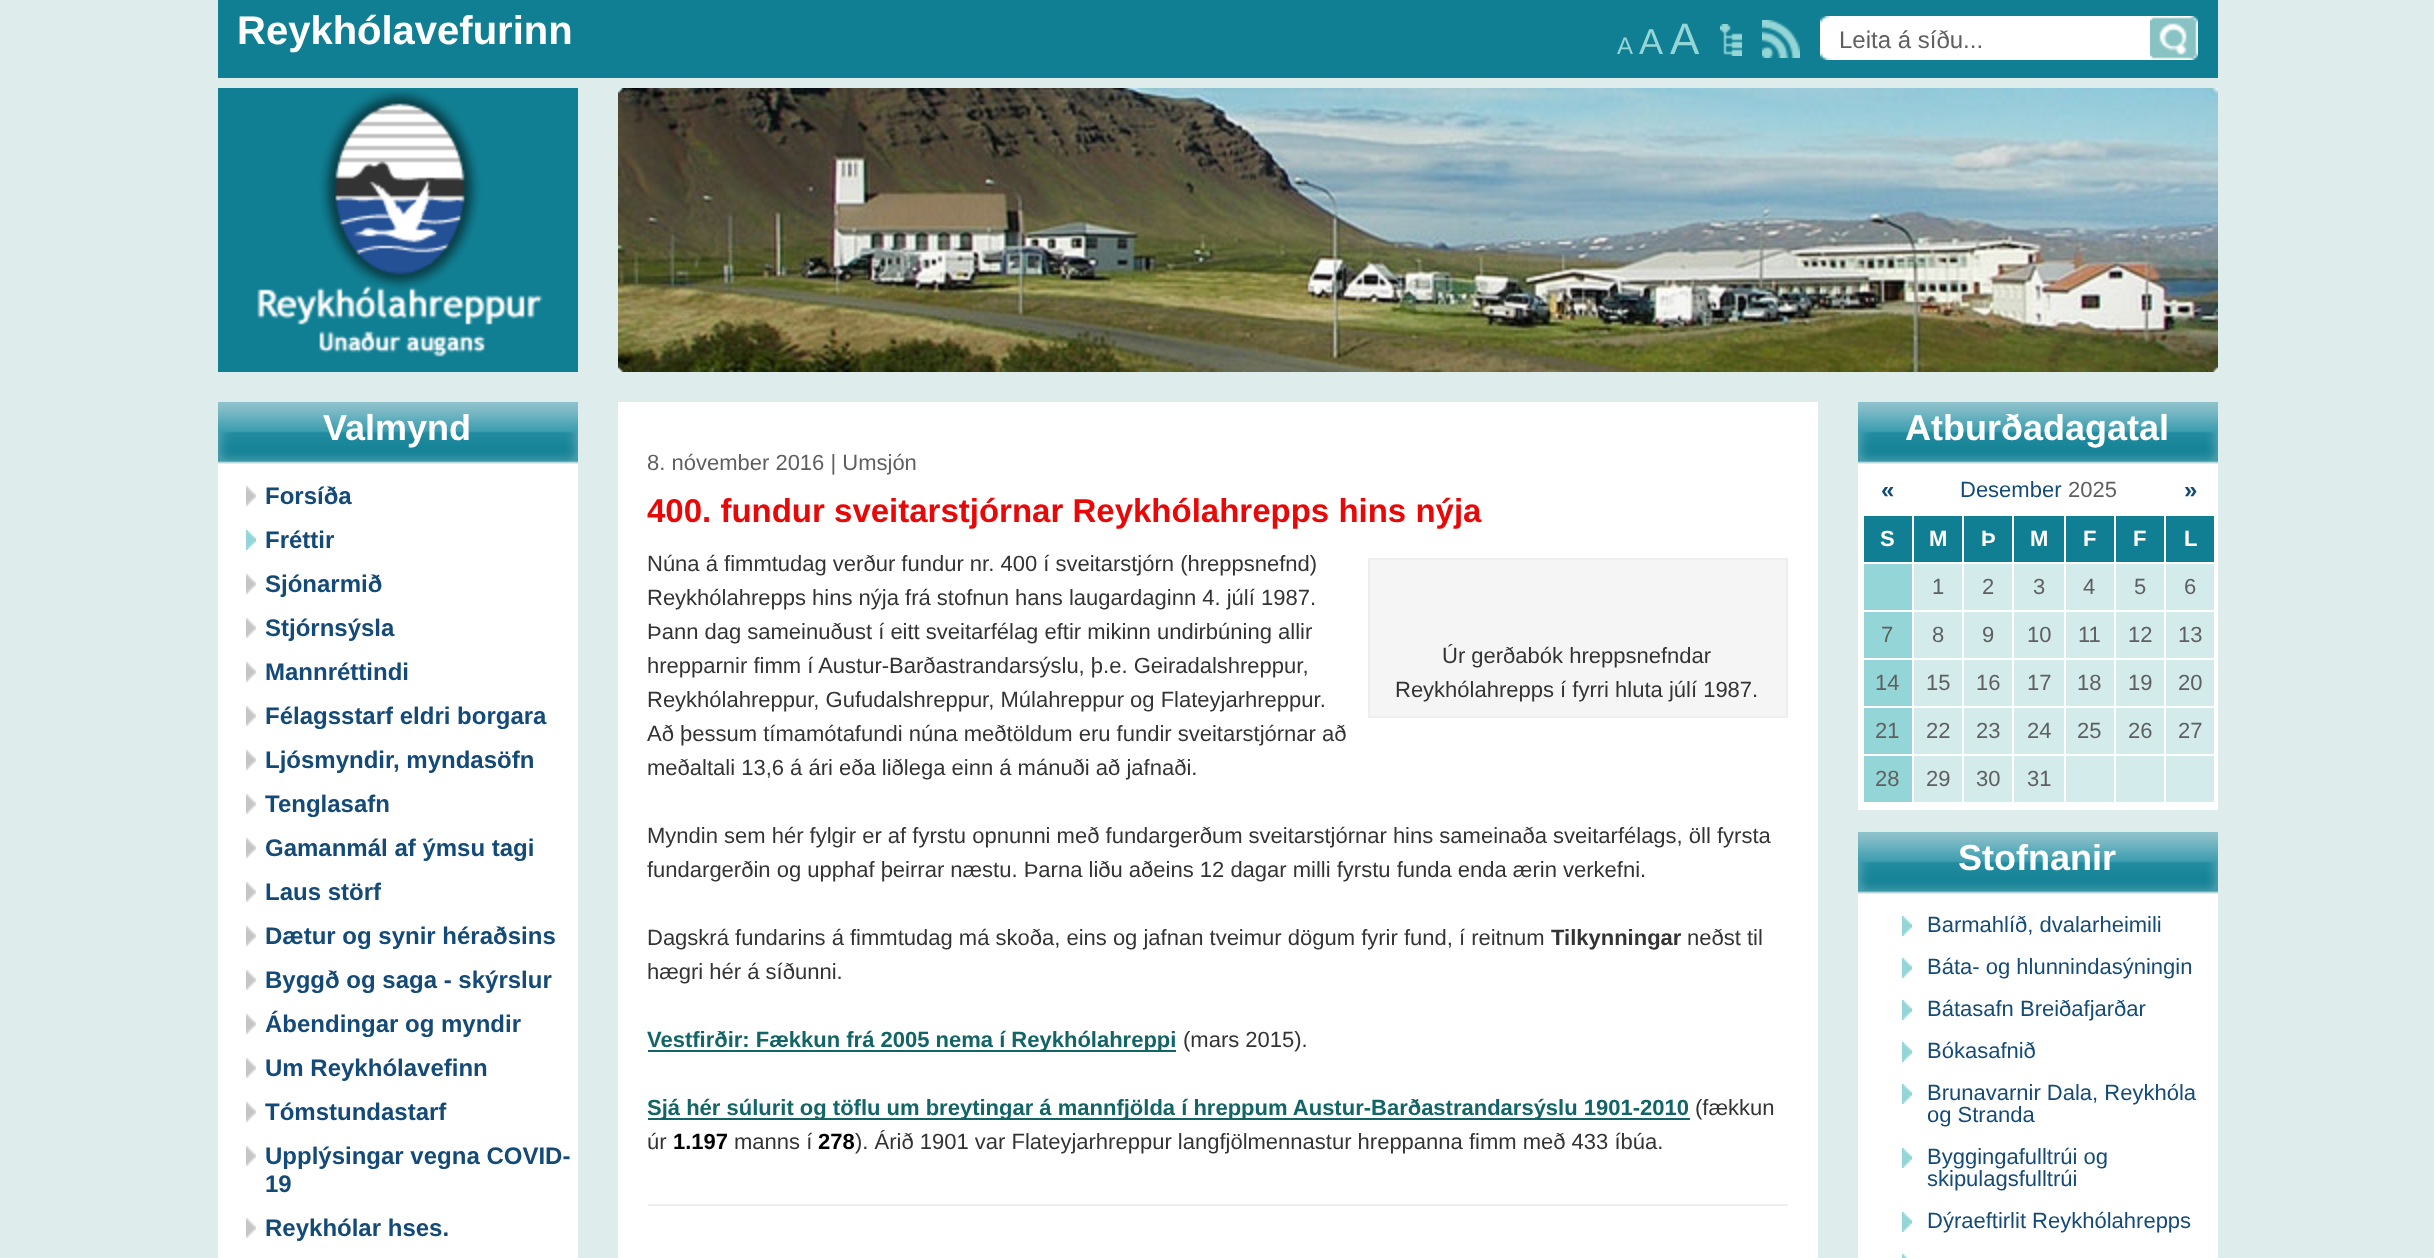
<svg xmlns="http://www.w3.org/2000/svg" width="2434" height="1258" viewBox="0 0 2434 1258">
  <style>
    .t1 { font: bold 40px Liberation Sans; fill: #fff; }
    .t2 { font: 24px Liberation Sans; fill: #94d6d7; }
    .t3 { font: 36px Liberation Sans; fill: #94d6d7; }
    .t4 { font: 44px Liberation Sans; fill: #94d6d7; }
    .t5 { font: 24px Liberation Sans; fill: #5f5f5f; }
    .t6 { font: bold 36px Liberation Sans; fill: #fff; }
    .t7 { font: bold 24px Liberation Sans; fill: #134a78; }
    .t8 { font: 22px Liberation Sans; fill: #5f5f5f; }
    .t9 { font: bold 33px Liberation Sans; fill: #e80808; }
    .t10 { font: 22px Liberation Sans; fill: #333; }
    .t11 { font: bold 22px Liberation Sans; fill: #333; }
    .t12 { font: bold 22px Liberation Sans; fill: #126567; }
    .t13 { font: bold 22px Liberation Sans; fill: #000; }
    .t14 { font: 22px Liberation Sans; fill: #134a78; }
    .t15 { font: bold 22px Liberation Sans; fill: #fff; }
  </style>
  <rect width="100%" height="100%" fill="#deecec"/>
  <rect x="218" y="0" width="2000" height="78" fill="#117f93"/>
  <text x="237" y="44" class="t1">Reykhólavefurinn</text>
  <text x="1617" y="54" class="t2">A</text>
  <text x="1639" y="54" class="t3">A</text>
  <text x="1670" y="54" class="t4">A</text>
  <image x="1720" y="24" width="22" height="32" href="images/1.png"/>
  <image x="1762" y="20" width="38" height="38" href="images/2.png"/>
  <rect x="1830" y="16" width="320" height="44" fill="#fff"/>
  <image x="1820" y="16" width="10" height="44" href="images/3.png"/>
  <text x="1839" y="48" class="t5">Leita á síðu...</text>
  <image x="2150" y="16" width="48" height="44" href="images/4.png"/>
  <image x="218" y="88" width="360" height="284" href="images/5.png"/>
  <image x="618" y="88" width="1600" height="284" href="images/6.png"/>
  <rect x="218" y="464" width="360" height="794" fill="#fff"/>
  <image x="218" y="402" width="360" height="62" href="images/7.png"/>
  <text x="323" y="440" class="t6">Valmynd</text>
  <image x="246" y="486" width="10" height="20" href="images/8.png"/>
  <text x="265" y="504" class="t7">Forsíða</text>
  <image x="246" y="530" width="10" height="20" href="images/9.png"/>
  <text x="265" y="548" class="t7">Fréttir</text>
  <image x="246" y="574" width="10" height="20" href="images/8.png"/>
  <text x="265" y="592" class="t7">Sjónarmið</text>
  <image x="246" y="618" width="10" height="20" href="images/8.png"/>
  <text x="265" y="636" class="t7">Stjórnsýsla</text>
  <image x="246" y="662" width="10" height="20" href="images/8.png"/>
  <text x="265" y="680" class="t7">Mannréttindi</text>
  <image x="246" y="706" width="10" height="20" href="images/8.png"/>
  <text x="265" y="724" class="t7">Félagsstarf eldri borgara</text>
  <image x="246" y="750" width="10" height="20" href="images/8.png"/>
  <text x="265" y="768" class="t7">Ljósmyndir, myndasöfn</text>
  <image x="246" y="794" width="10" height="20" href="images/8.png"/>
  <text x="265" y="812" class="t7">Tenglasafn</text>
  <image x="246" y="838" width="10" height="20" href="images/8.png"/>
  <text x="265" y="856" class="t7">Gamanmál af ýmsu tagi</text>
  <image x="246" y="882" width="10" height="20" href="images/8.png"/>
  <text x="265" y="900" class="t7">Laus störf</text>
  <image x="246" y="926" width="10" height="20" href="images/8.png"/>
  <text x="265" y="944" class="t7">Dætur og synir héraðsins</text>
  <image x="246" y="970" width="10" height="20" href="images/8.png"/>
  <text x="265" y="988" class="t7">Byggð og saga - skýrslur</text>
  <image x="246" y="1014" width="10" height="20" href="images/8.png"/>
  <text x="265" y="1032" class="t7">Ábendingar og myndir</text>
  <image x="246" y="1058" width="10" height="20" href="images/8.png"/>
  <text x="265" y="1076" class="t7">Um Reykhólavefinn</text>
  <image x="246" y="1102" width="10" height="20" href="images/8.png"/>
  <text x="265" y="1120" class="t7">Tómstundastarf</text>
  <image x="246" y="1146" width="10" height="20" href="images/8.png"/>
  <text x="265" y="1164" class="t7">Upplýsingar vegna COVID-</text>
  <text x="265" y="1192" class="t7">19</text>
  <image x="246" y="1218" width="10" height="20" href="images/8.png"/>
  <text x="265" y="1236" class="t7">Reykhólar hses.</text>
  <rect x="618" y="402" width="1200" height="856" fill="#fff"/>
  <text x="647" y="470" class="t8">8. nóvember 2016 | Umsjón</text>
  <text x="647" y="522" class="t9">400. fundur sveitarstjórnar Reykhólahrepps hins nýja</text>
  <text x="647" y="571" class="t10">Núna á fimmtudag verður fundur nr. 400 í sveitarstjórn (hreppsnefnd)</text>
  <text x="647" y="605" class="t10">Reykhólahrepps hins nýja frá stofnun hans laugardaginn 4. júlí 1987.</text>
  <text x="647" y="639" class="t10">Þann dag sameinuðust í eitt sveitarfélag eftir mikinn undirbúning allir</text>
  <text x="647" y="673" class="t10">hrepparnir fimm í Austur-Barðastrandarsýslu, þ.e. Geiradalshreppur,</text>
  <text x="647" y="707" class="t10">Reykhólahreppur, Gufudalshreppur, Múlahreppur og Flateyjarhreppur.</text>
  <text x="647" y="741" class="t10">Að þessum tímamótafundi núna meðtöldum eru fundir sveitarstjórnar að</text>
  <text x="647" y="775" class="t10">meðaltali 13,6 á ári eða liðlega einn á mánuði að jafnaði.</text>
  <rect x="1369" y="559" width="418" height="158" fill="#f5f5f5" stroke="#eee" stroke-width="2"/>
  <text x="1442" y="663" class="t10">Úr gerðabók hreppsnefndar</text>
  <text x="1395" y="697" class="t10">Reykhólahrepps í fyrri hluta júlí 1987.</text>
  <text x="647" y="843" class="t10">Myndin sem hér fylgir er af fyrstu opnunni með fundargerðum sveitarstjórnar hins sameinaða sveitarfélags, öll fyrsta</text>
  <text x="647" y="877" class="t10">fundargerðin og upphaf þeirrar næstu. Þarna liðu aðeins 12 dagar milli fyrstu funda enda ærin verkefni.</text>
  <text x="647" y="945" class="t10">Dagskrá fundarins á fimmtudag má skoða, eins og jafnan tveimur dögum fyrir fund, í reitnum</text>
  <text x="1551" y="945" class="t11">Tilkynningar</text>
  <text x="1687" y="945" class="t10">neðst til</text>
  <text x="647" y="979" class="t10">hægri hér á síðunni.</text>
  <rect x="648" y="1050" width="528" height="2" fill="#126567"/>
  <text x="647" y="1047" class="t12">Vestfirðir: Fækkun frá 2005 nema í Reykhólahreppi</text>
  <text x="1183" y="1047" class="t10">(mars 2015).</text>
  <rect x="648" y="1118" width="1042" height="2" fill="#126567"/>
  <text x="647" y="1115" class="t12">Sjá hér súlurit og töflu um breytingar á mannfjölda í hreppum Austur-Barðastrandarsýslu 1901-2010</text>
  <text x="1695" y="1115" class="t10">(fækkun</text>
  <text x="647" y="1149" class="t10">úr</text>
  <text x="673" y="1149" class="t13">1.197</text>
  <text x="734" y="1149" class="t10">manns í</text>
  <text x="818" y="1149" class="t13">278</text>
  <text x="855" y="1149" class="t10">). Árið 1901 var Flateyjarhreppur langfjölmennastur hreppanna fimm með 433 íbúa.</text>
  <rect x="648" y="1204" width="1140" height="2" fill="#eee"/>
  <rect x="1858" y="464" width="360" height="346" fill="#fff"/>
  <image x="1858" y="402" width="360" height="62" href="images/7.png"/>
  <text x="1905" y="440" class="t6">Atburðadagatal</text>
  <text x="1881" y="498" class="t7">«</text>
  <text x="1960" y="497" class="t14">Desember</text>
  <text x="2068" y="497" class="t8">2025</text>
  <text x="2184" y="498" class="t7">»</text>
  <rect x="1864" y="516" width="48" height="46" fill="#117f93"/>
  <text x="1880" y="546" class="t15">S</text>
  <rect x="1914" y="516" width="48" height="46" fill="#117f93"/>
  <text x="1929" y="546" class="t15">M</text>
  <rect x="1964" y="516" width="48" height="46" fill="#117f93"/>
  <text x="1981" y="546" class="t15">Þ</text>
  <rect x="2014" y="516" width="50" height="46" fill="#117f93"/>
  <text x="2030" y="546" class="t15">M</text>
  <rect x="2066" y="516" width="48" height="46" fill="#117f93"/>
  <text x="2083" y="546" class="t15">F</text>
  <rect x="2116" y="516" width="48" height="46" fill="#117f93"/>
  <text x="2133" y="546" class="t15">F</text>
  <rect x="2166" y="516" width="48" height="46" fill="#117f93"/>
  <text x="2184" y="546" class="t15">L</text>
  <rect x="1864" y="564" width="48" height="46" fill="#94d6d7"/>
  <rect x="1914" y="564" width="48" height="46" fill="#d4ebeb"/>
  <text x="1932" y="594" class="t8">1</text>
  <rect x="1964" y="564" width="48" height="46" fill="#d4ebeb"/>
  <text x="1982" y="594" class="t8">2</text>
  <rect x="2014" y="564" width="50" height="46" fill="#d4ebeb"/>
  <text x="2033" y="594" class="t8">3</text>
  <rect x="2066" y="564" width="48" height="46" fill="#d4ebeb"/>
  <text x="2083" y="594" class="t8">4</text>
  <rect x="2116" y="564" width="48" height="46" fill="#d4ebeb"/>
  <text x="2134" y="594" class="t8">5</text>
  <rect x="2166" y="564" width="48" height="46" fill="#d4ebeb"/>
  <text x="2184" y="594" class="t8">6</text>
  <rect x="1864" y="612" width="48" height="46" fill="#94d6d7"/>
  <text x="1881" y="642" class="t8">7</text>
  <rect x="1914" y="612" width="48" height="46" fill="#d4ebeb"/>
  <text x="1932" y="642" class="t8">8</text>
  <rect x="1964" y="612" width="48" height="46" fill="#d4ebeb"/>
  <text x="1982" y="642" class="t8">9</text>
  <rect x="2014" y="612" width="50" height="46" fill="#d4ebeb"/>
  <text x="2027" y="642" class="t8">10</text>
  <rect x="2066" y="612" width="48" height="46" fill="#d4ebeb"/>
  <text x="2078" y="642" class="t8">11</text>
  <rect x="2116" y="612" width="48" height="46" fill="#d4ebeb"/>
  <text x="2128" y="642" class="t8">12</text>
  <rect x="2166" y="612" width="48" height="46" fill="#d4ebeb"/>
  <text x="2178" y="642" class="t8">13</text>
  <rect x="1864" y="660" width="48" height="46" fill="#94d6d7"/>
  <text x="1875" y="690" class="t8">14</text>
  <rect x="1914" y="660" width="48" height="46" fill="#d4ebeb"/>
  <text x="1926" y="690" class="t8">15</text>
  <rect x="1964" y="660" width="48" height="46" fill="#d4ebeb"/>
  <text x="1976" y="690" class="t8">16</text>
  <rect x="2014" y="660" width="50" height="46" fill="#d4ebeb"/>
  <text x="2027" y="690" class="t8">17</text>
  <rect x="2066" y="660" width="48" height="46" fill="#d4ebeb"/>
  <text x="2077" y="690" class="t8">18</text>
  <rect x="2116" y="660" width="48" height="46" fill="#d4ebeb"/>
  <text x="2128" y="690" class="t8">19</text>
  <rect x="2166" y="660" width="48" height="46" fill="#d4ebeb"/>
  <text x="2178" y="690" class="t8">20</text>
  <rect x="1864" y="708" width="48" height="46" fill="#94d6d7"/>
  <text x="1875" y="738" class="t8">21</text>
  <rect x="1914" y="708" width="48" height="46" fill="#d4ebeb"/>
  <text x="1926" y="738" class="t8">22</text>
  <rect x="1964" y="708" width="48" height="46" fill="#d4ebeb"/>
  <text x="1976" y="738" class="t8">23</text>
  <rect x="2014" y="708" width="50" height="46" fill="#d4ebeb"/>
  <text x="2027" y="738" class="t8">24</text>
  <rect x="2066" y="708" width="48" height="46" fill="#d4ebeb"/>
  <text x="2077" y="738" class="t8">25</text>
  <rect x="2116" y="708" width="48" height="46" fill="#d4ebeb"/>
  <text x="2128" y="738" class="t8">26</text>
  <rect x="2166" y="708" width="48" height="46" fill="#d4ebeb"/>
  <text x="2178" y="738" class="t8">27</text>
  <rect x="1864" y="756" width="48" height="46" fill="#94d6d7"/>
  <text x="1875" y="786" class="t8">28</text>
  <rect x="1914" y="756" width="48" height="46" fill="#d4ebeb"/>
  <text x="1926" y="786" class="t8">29</text>
  <rect x="1964" y="756" width="48" height="46" fill="#d4ebeb"/>
  <text x="1976" y="786" class="t8">30</text>
  <rect x="2014" y="756" width="50" height="46" fill="#d4ebeb"/>
  <text x="2027" y="786" class="t8">31</text>
  <rect x="2066" y="756" width="48" height="46" fill="#d4ebeb"/>
  <rect x="2116" y="756" width="48" height="46" fill="#d4ebeb"/>
  <rect x="2166" y="756" width="48" height="46" fill="#d4ebeb"/>
  <rect x="1858" y="894" width="360" height="364" fill="#fff"/>
  <image x="1858" y="832" width="360" height="62" href="images/7.png"/>
  <text x="1958" y="870" class="t6">Stofnanir</text>
  <image x="1902" y="916" width="10" height="20" href="images/9.png"/>
  <text x="1927" y="932" class="t14">Barmahlíð, dvalarheimili</text>
  <image x="1902" y="958" width="10" height="20" href="images/9.png"/>
  <text x="1927" y="974" class="t14">Báta- og hlunnindasýningin</text>
  <image x="1902" y="1000" width="10" height="20" href="images/9.png"/>
  <text x="1927" y="1016" class="t14">Bátasafn Breiðafjarðar</text>
  <image x="1902" y="1042" width="10" height="20" href="images/9.png"/>
  <text x="1927" y="1058" class="t14">Bókasafnið</text>
  <image x="1902" y="1084" width="10" height="20" href="images/9.png"/>
  <text x="1927" y="1100" class="t14">Brunavarnir Dala, Reykhóla</text>
  <text x="1927" y="1122" class="t14">og Stranda</text>
  <image x="1902" y="1148" width="10" height="20" href="images/9.png"/>
  <text x="1927" y="1164" class="t14">Byggingafulltrúi og</text>
  <text x="1927" y="1186" class="t14">skipulagsfulltrúi</text>
  <image x="1902" y="1212" width="10" height="20" href="images/9.png"/>
  <text x="1927" y="1228" class="t14">Dýraeftirlit Reykhólahrepps</text>
  <image x="1902" y="1254" width="7" height="4" href="images/10.png"/>
</svg>
